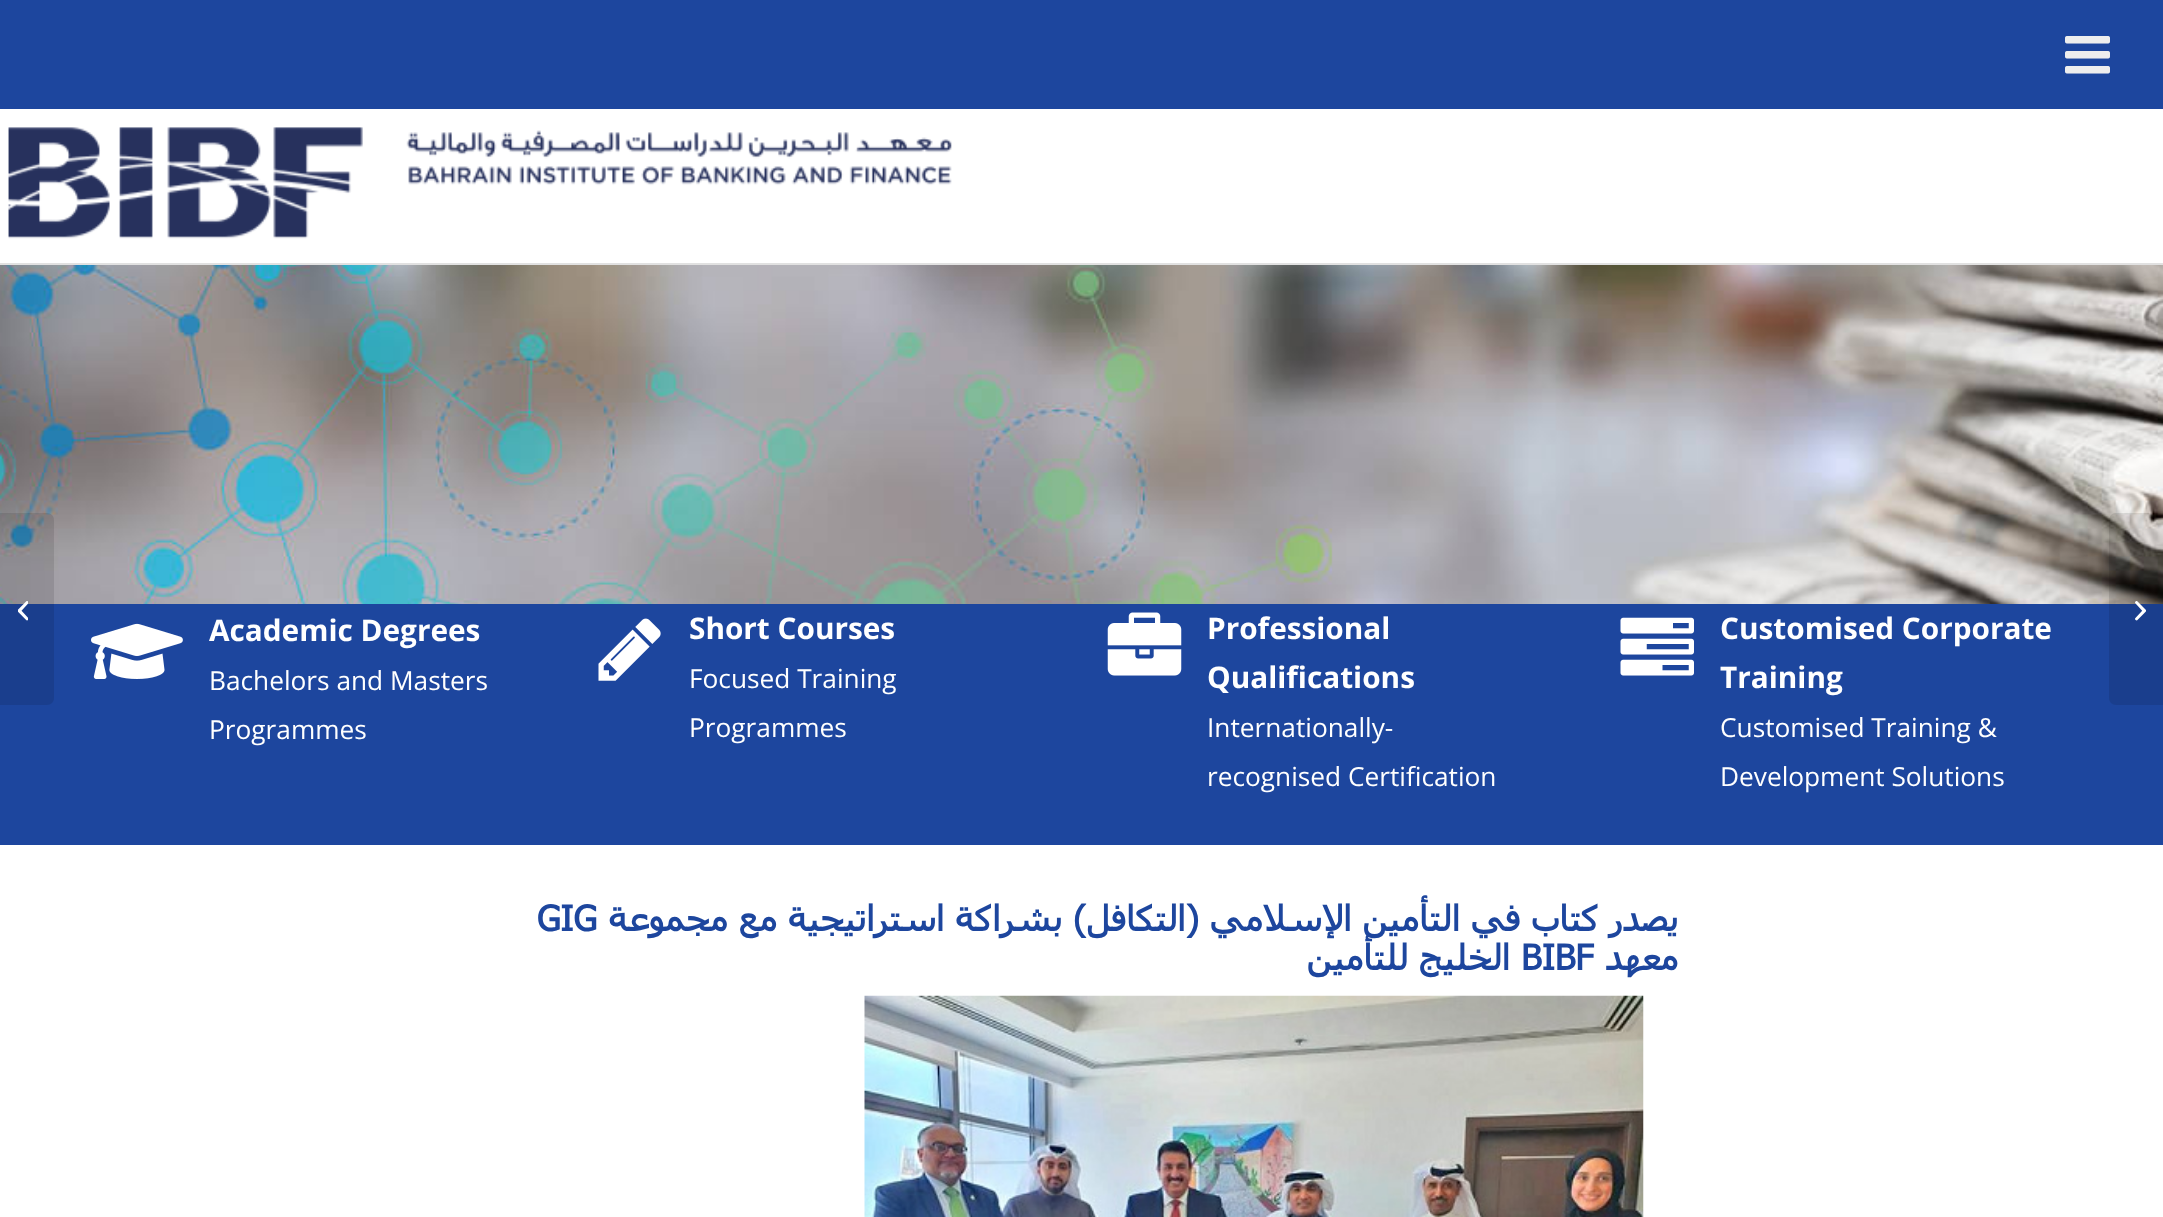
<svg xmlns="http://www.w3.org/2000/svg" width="2163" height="1217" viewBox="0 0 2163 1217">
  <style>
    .t1 { font: bold 29.75px Open Sans; fill: #fff; }
    .t2 { font: 26.25px Open Sans; fill: #fff; }
    .t3 { font: bold 35px Tahoma; fill: #1d469e; }
    .t4 { font: bold 35px Tahoma; direction: rtl; fill: #1d469e; }
  </style>
  <rect width="100%" height="100%" fill="#fff"/>
  <rect x="0" y="0" width="2163" height="109" fill="#1d469e"/>
  <image x="2065" y="36" width="45" height="38" href="images/1.png"/>
  <rect x="0" y="263" width="2163" height="2" fill="#e1e1e1"/>
  <image x="8" y="127" width="944" height="112" href="images/2.png"/>
  <image x="0" y="265" width="2163" height="339" href="images/4.png"/>
  <rect x="0" y="604" width="2163" height="241" fill="#1d469e"/>
  <path d="M0 513H47C51 513 54 516 54 520V698C54 702 51 705 47 705H0Z" fill="#0000001a"/>
  <image x="18" y="601" width="10" height="20" href="images/3.png"/>
  <image x="91" y="623" width="92" height="56" href="images/5.png"/>
  <text x="209" y="641" class="t1">Academic Degrees</text>
  <text x="209" y="690" class="t2">Bachelors and Masters</text>
  <text x="209" y="739" class="t2">Programmes</text>
  <image x="598" y="618" width="63" height="63" href="images/6.png"/>
  <text x="689" y="639" class="t1">Short Courses</text>
  <text x="689" y="688" class="t2">Focused Training</text>
  <text x="689" y="737" class="t2">Programmes</text>
  <image x="1107" y="612" width="75" height="64" href="images/7.png"/>
  <text x="1207" y="639" class="t1">Professional</text>
  <text x="1207" y="688" class="t1">Qualifications</text>
  <text x="1207" y="737" class="t2">Internationally-</text>
  <text x="1207" y="786" class="t2">recognised Certification</text>
  <image x="1620" y="617" width="74" height="59" href="images/8.png"/>
  <text x="1720" y="639" class="t1">Customised Corporate</text>
  <text x="1720" y="688" class="t1">Training</text>
  <text x="1720" y="737" class="t2">Customised Training &amp;</text>
  <text x="1720" y="786" class="t2">Development Solutions</text>
  <text x="537" y="931" class="t3">GIG</text>
  <text x="1678" y="931" class="t4">يصدر كتاب في التأمين الإسلامي (التكافل) بشراكة استراتيجية مع مجموعة</text>
  <text x="1510" y="970" class="t4">الخليج للتأمين</text>
  <text x="1521" y="970" class="t3">BIBF</text>
  <text x="1678" y="970" class="t4">معهد</text>
  <image x="864" y="995" width="780" height="222" href="images/9.png"/>
  <path d="M2116 513H2163V705H2116C2112 705 2109 702 2109 698V520C2109 516 2112 513 2116 513Z" fill="#0000001a"/>
  <image x="2135" y="601" width="11" height="20" href="images/10.png"/>
</svg>
